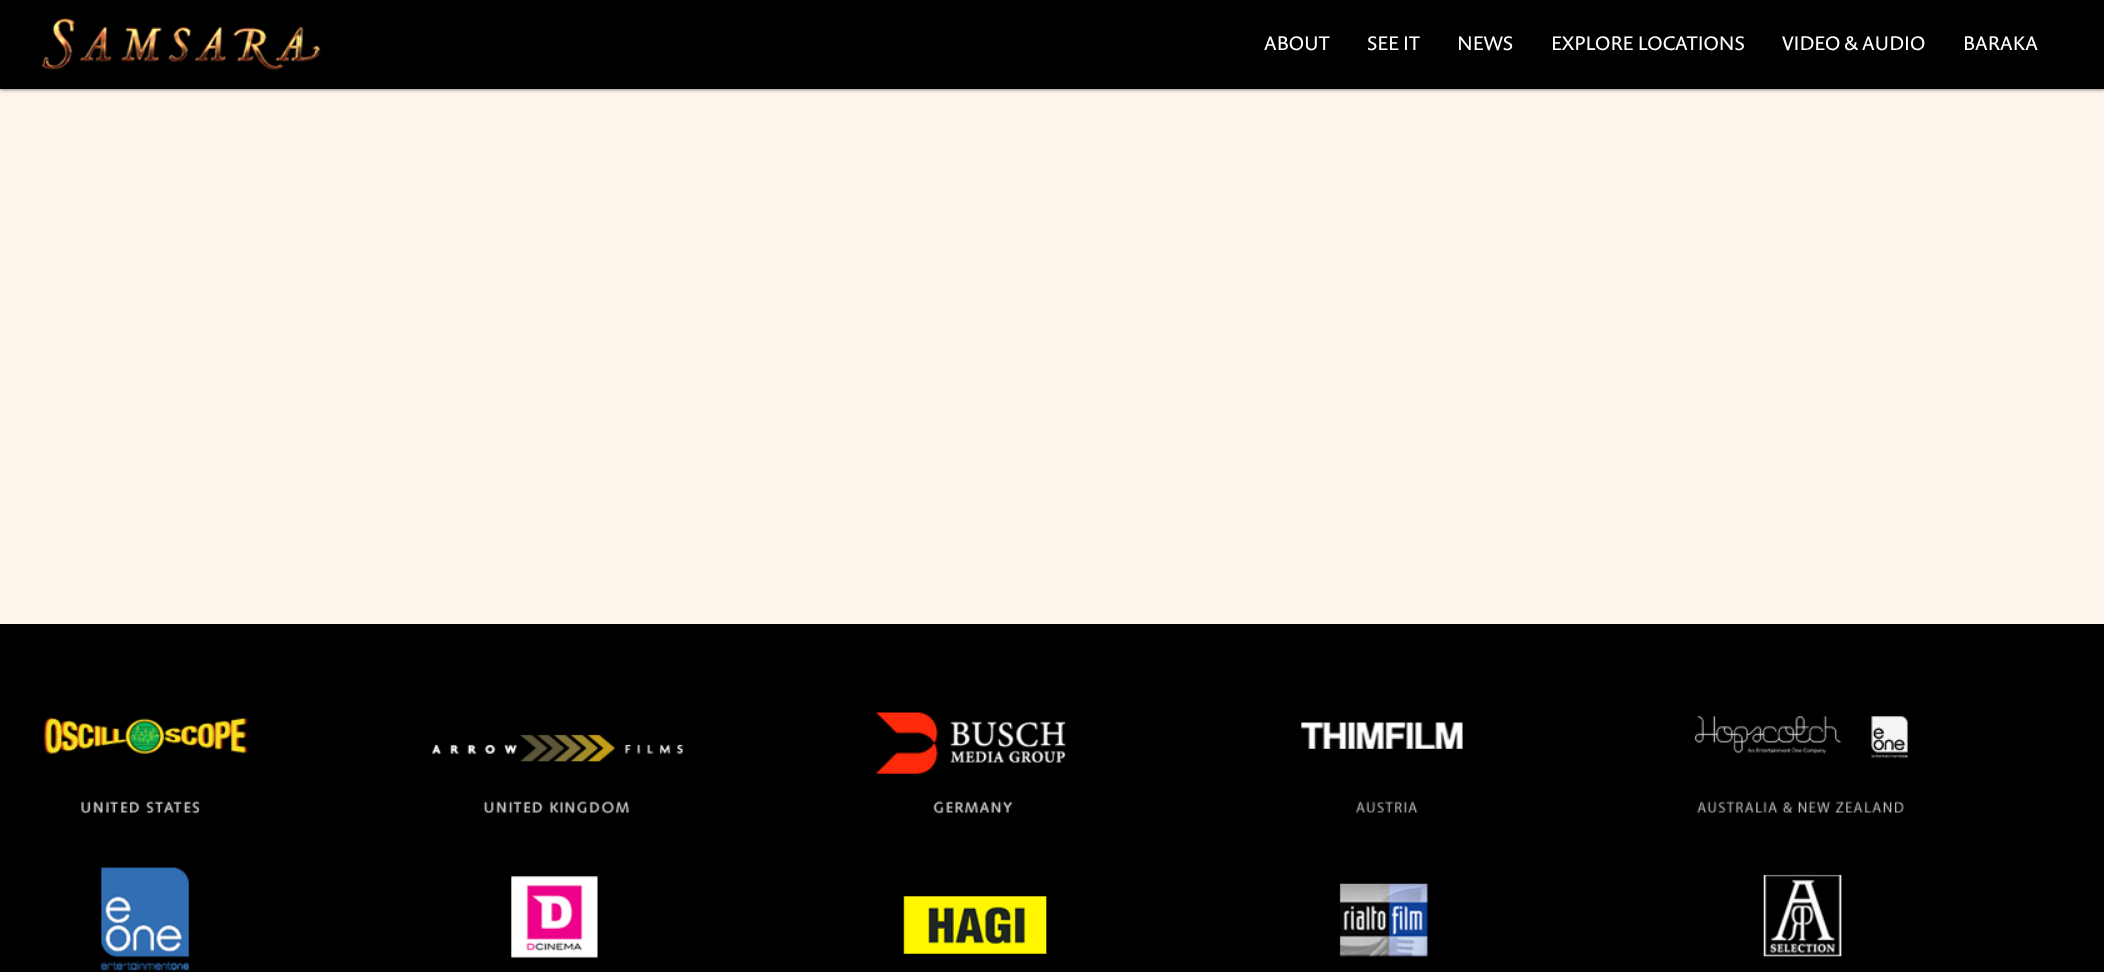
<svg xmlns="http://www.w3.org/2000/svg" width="2104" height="972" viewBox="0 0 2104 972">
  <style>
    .t1 { font: 20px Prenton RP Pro; fill: #fff; }
  </style>
  <rect width="100%" height="100%" fill="#fdf5ec"/>
  <rect x="0" y="0" width="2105" height="89" fill="#4d4d4d" filter="blur(2px)"/>
  <rect x="0" y="0" width="2104" height="89" fill="#000"/>
  <image x="41" y="18" width="280" height="53" href="images/1.png"/>
  <text x="1264" y="50" class="t1">ABOUT</text>
  <text x="1367" y="50" class="t1">SEE IT</text>
  <text x="1457" y="50" class="t1">NEWS</text>
  <text x="1551" y="50" class="t1">EXPLORE LOCATIONS</text>
  <text x="1782" y="50" class="t1">VIDEO &amp; AUDIO</text>
  <text x="1963" y="50" class="t1">BARAKA</text>
  <rect x="0" y="624" width="2104" height="348" fill="#000"/>
  <image x="43" y="717" width="205" height="97" href="images/2.png"/>
  <image x="432" y="734" width="251" height="80" href="images/3.png"/>
  <image x="876" y="712" width="190" height="102" href="images/4.png"/>
  <image x="1301" y="722" width="162" height="91" href="images/5.png"/>
  <image x="1694" y="716" width="214" height="97" href="images/6.png"/>
  <image x="101" y="867" width="88" height="104" href="images/7.png"/>
  <image x="511" y="876" width="87" height="82" href="images/8.png"/>
  <image x="903" y="896" width="144" height="58" href="images/9.png"/>
  <image x="1339" y="883" width="89" height="74" href="images/10.png"/>
  <image x="1763" y="874" width="79" height="83" href="images/11.png"/>
</svg>
